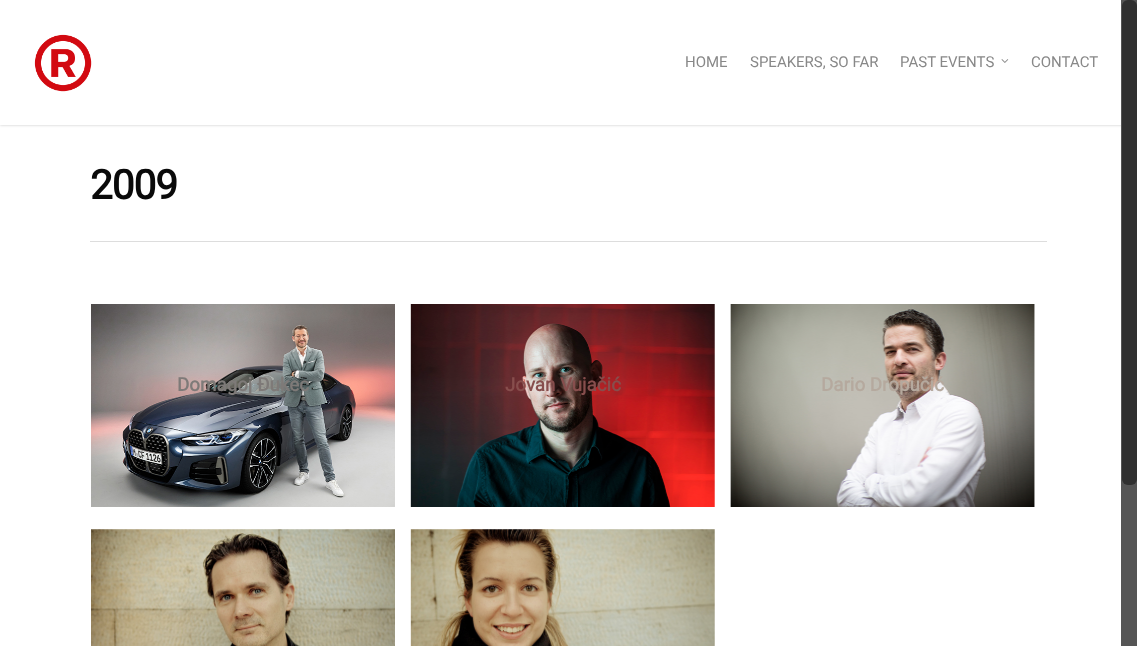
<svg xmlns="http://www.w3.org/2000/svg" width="1137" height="646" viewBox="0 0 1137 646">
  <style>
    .t1 { font: 15px Roboto; fill: #888; }
    .t2 { font: bold 40.5px Roboto; letter-spacing: -1px; fill: #0a0a0a; }
    .t3 { font: bold 18.75px Roboto; fill: #7e7a78; }
    .t4 { font: bold 18.75px Roboto; fill: #874e4d; }
    .t5 { font: bold 18.75px Roboto; fill: #b5a99e; }
  </style>
  <rect width="100%" height="100%" fill="#fff"/>
  <rect x="0" y="0" width="1137" height="125" fill="#00000038" filter="blur(1.5px)"/>
  <rect x="0" y="0" width="1121" height="125" fill="#fff"/>
  <image x="34" y="34" width="58" height="58" href="images/1.png"/>
  <text x="685" y="67" class="t1">HOME</text>
  <text x="750" y="67" class="t1">SPEAKERS, SO FAR</text>
  <text x="900" y="67" class="t1">PAST EVENTS</text>
  <image x="1001" y="59" width="8" height="4" href="images/2.png"/>
  <text x="1031" y="67" class="t1">CONTACT</text>
  <rect x="1121" y="0" width="16" height="646" fill="#555"/>
  <rect x="1122" y="0" width="15" height="485" rx="6" fill="#303030"/>
  <rect x="90" y="241" width="957" height="1" fill="#ddd"/>
  <text x="90" y="199" class="t2">2009</text>
  <image x="91" y="304" width="304" height="203" href="images/3.png"/>
  <text x="177" y="391" class="t3">Domagoj Đukec</text>
  <image x="410" y="304" width="305" height="203" href="images/4.png"/>
  <text x="505" y="391" class="t4">Jovan Vujačić</text>
  <image x="730" y="304" width="305" height="203" href="images/5.png"/>
  <text x="821" y="391" class="t5">Dario Dropučić</text>
  <image x="91" y="529" width="304" height="117" href="images/6.png"/>
  <image x="410" y="529" width="305" height="117" href="images/7.png"/>
</svg>
